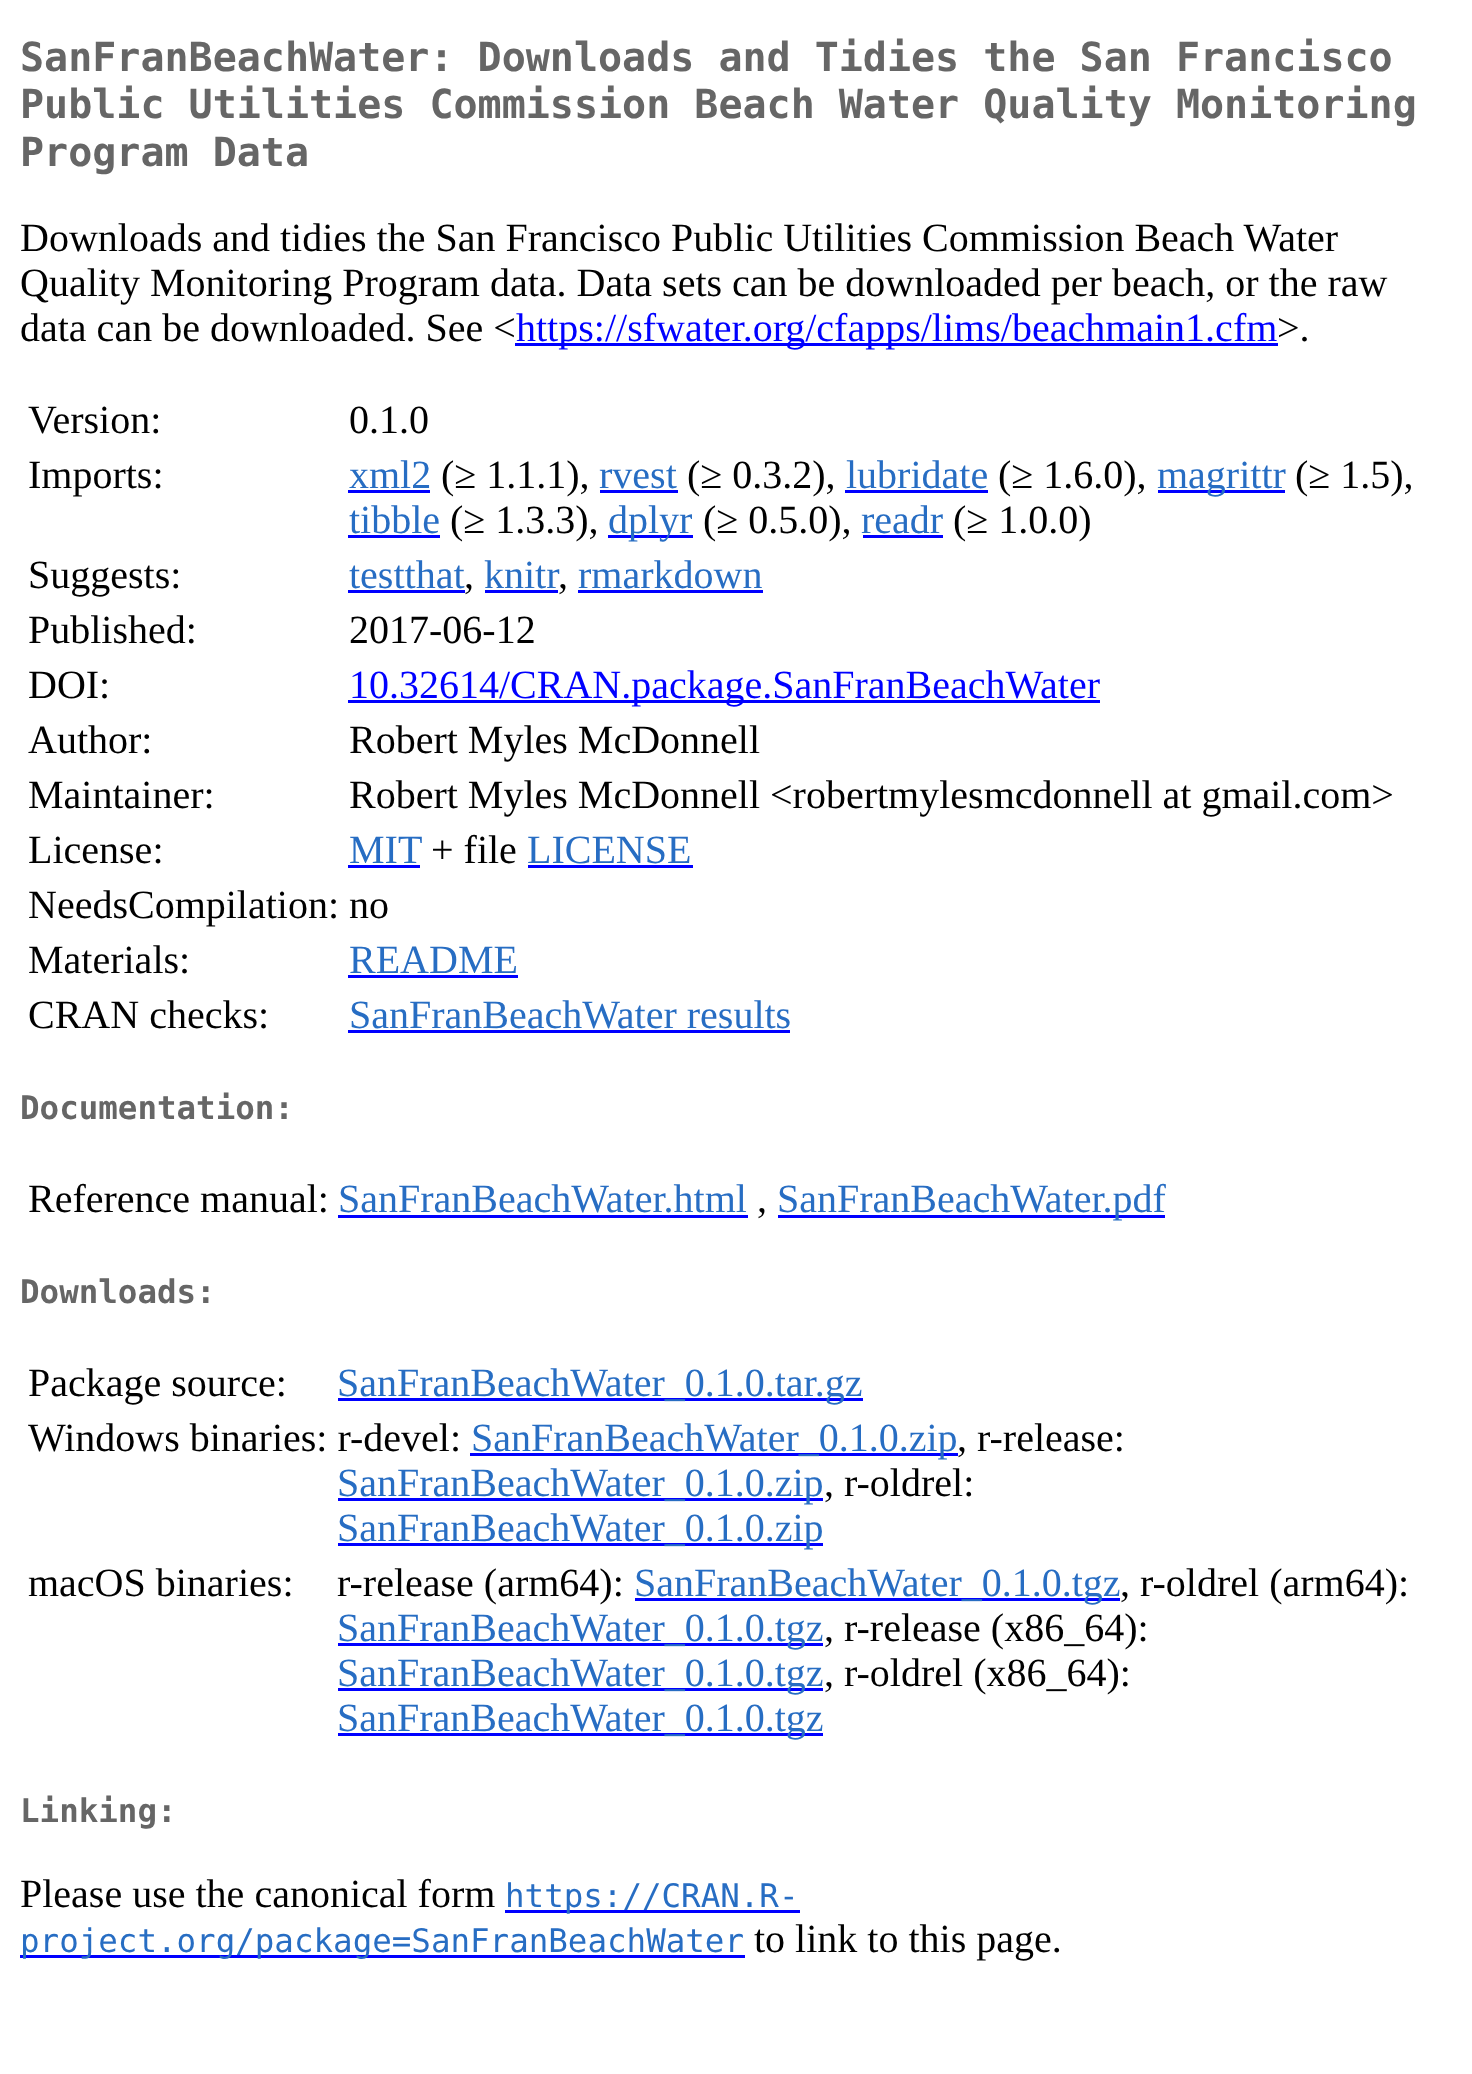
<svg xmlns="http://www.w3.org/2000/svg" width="1472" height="2074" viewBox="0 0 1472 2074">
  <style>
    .t1 { font: bold 40px DejaVu Sans Mono; fill: #666; }
    .t2 { font: 40px Liberation Serif; fill: #000; }
    .t3 { font: 40px Liberation Serif; fill: #00f; }
    .t4 { font: 40px Liberation Serif; fill: #276dc3; }
    .t5 { font: bold 32.5px DejaVu Sans Mono; fill: #666; }
    .t6 { font: 32.5px DejaVu Sans Mono; fill: #276dc3; }
  </style>
  <rect width="100%" height="100%" fill="#fff"/>
  <text x="20" y="71" class="t1">SanFranBeachWater: Downloads and Tidies the San Francisco</text>
  <text x="20" y="118" class="t1">Public Utilities Commission Beach Water Quality Monitoring</text>
  <text x="20" y="166" class="t1">Program Data</text>
  <text x="20" y="251" class="t2">Downloads and tidies the San Francisco Public Utilities Commission Beach Water</text>
  <text x="20" y="296" class="t2">Quality Monitoring Program data. Data sets can be downloaded per beach, or the raw</text>
  <text x="20" y="341" class="t2">data can be downloaded. See &lt;</text>
  <rect x="515" y="343" width="763" height="3" fill="#00f"/>
  <text x="516" y="341" class="t3">https://sfwater.org/cfapps/lims/beachmain1.cfm</text>
  <text x="1277" y="341" class="t2">&gt;.</text>
  <text x="28" y="433" class="t2">Version:</text>
  <text x="349" y="433" class="t2">0.1.0</text>
  <text x="28" y="488" class="t2">Imports:</text>
  <text x="349" y="488" class="t4">xml2</text>
  <rect x="348" y="490" width="82" height="3" fill="#00f"/>
  <text x="441" y="488" class="t2">(≥ 1.1.1),</text>
  <text x="599" y="488" class="t4">rvest</text>
  <rect x="600" y="490" width="78" height="3" fill="#00f"/>
  <text x="687" y="488" class="t2">(≥ 0.3.2),</text>
  <text x="846" y="488" class="t4">lubridate</text>
  <rect x="845" y="490" width="143" height="3" fill="#00f"/>
  <text x="998" y="488" class="t2">(≥ 1.6.0),</text>
  <rect x="1158" y="490" width="127" height="3" fill="#00f"/>
  <text x="1157" y="488" class="t4">magrittr</text>
  <text x="1295" y="488" class="t2">(≥ 1.5),</text>
  <text x="349" y="533" class="t4">tibble</text>
  <rect x="348" y="535" width="92" height="3" fill="#00f"/>
  <text x="450" y="533" class="t2">(≥ 1.3.3),</text>
  <rect x="608" y="535" width="85" height="3" fill="#00f"/>
  <text x="608" y="533" class="t4">dplyr</text>
  <text x="703" y="533" class="t2">(≥ 0.5.0),</text>
  <text x="861" y="533" class="t4">readr</text>
  <rect x="863" y="535" width="80" height="3" fill="#00f"/>
  <text x="953" y="533" class="t2">(≥ 1.0.0)</text>
  <text x="28" y="588" class="t2">Suggests:</text>
  <text x="349" y="588" class="t4">testthat</text>
  <rect x="348" y="590" width="117" height="3" fill="#00f"/>
  <text x="464" y="588" class="t2">,</text>
  <text x="484" y="588" class="t4">knitr</text>
  <rect x="485" y="590" width="73" height="3" fill="#00f"/>
  <text x="558" y="588" class="t2">,</text>
  <text x="578" y="588" class="t4">rmarkdown</text>
  <rect x="578" y="590" width="185" height="3" fill="#00f"/>
  <text x="28" y="643" class="t2">Published:</text>
  <text x="349" y="643" class="t2">2017-06-12</text>
  <text x="28" y="698" class="t2">DOI:</text>
  <rect x="348" y="700" width="752" height="3" fill="#00f"/>
  <text x="349" y="698" class="t3">10.32614/CRAN.package.SanFranBeachWater</text>
  <text x="28" y="753" class="t2">Author:</text>
  <text x="349" y="753" class="t2">Robert Myles McDonnell</text>
  <text x="28" y="808" class="t2">Maintainer:</text>
  <text x="349" y="808" class="t2">Robert Myles McDonnell &lt;robertmylesmcdonnell at gmail.com&gt;</text>
  <text x="28" y="863" class="t2">License:</text>
  <text x="349" y="863" class="t4">MIT</text>
  <rect x="348" y="865" width="72" height="3" fill="#00f"/>
  <text x="431" y="863" class="t2">+ file</text>
  <text x="527" y="863" class="t4">LICENSE</text>
  <rect x="528" y="865" width="165" height="3" fill="#00f"/>
  <text x="28" y="918" class="t2">NeedsCompilation: no</text>
  <text x="28" y="973" class="t2">Materials:</text>
  <text x="349" y="973" class="t4">README</text>
  <rect x="348" y="975" width="170" height="3" fill="#00f"/>
  <text x="28" y="1028" class="t2">CRAN checks:</text>
  <text x="349" y="1028" class="t4">SanFranBeachWater results</text>
  <rect x="348" y="1030" width="442" height="3" fill="#00f"/>
  <text x="20" y="1119" class="t5">Documentation:</text>
  <text x="28" y="1212" class="t2">Reference manual:</text>
  <text x="338" y="1212" class="t4">SanFranBeachWater.html</text>
  <rect x="338" y="1215" width="410" height="3" fill="#00f"/>
  <text x="757" y="1212" class="t2">,</text>
  <rect x="778" y="1215" width="387" height="3" fill="#00f"/>
  <text x="777" y="1212" class="t4">SanFranBeachWater.pdf</text>
  <text x="20" y="1303" class="t5">Downloads:</text>
  <text x="28" y="1396" class="t2">Package source:</text>
  <rect x="338" y="1398" width="525" height="3" fill="#00f"/>
  <text x="337" y="1396" class="t4">SanFranBeachWater_0.1.0.tar.gz</text>
  <text x="28" y="1451" class="t2">Windows binaries: r-devel:</text>
  <rect x="470" y="1453" width="488" height="3" fill="#00f"/>
  <text x="471" y="1451" class="t4">SanFranBeachWater_0.1.0.zip</text>
  <text x="957" y="1451" class="t2">, r-release:</text>
  <rect x="338" y="1498" width="485" height="3" fill="#00f"/>
  <text x="337" y="1496" class="t4">SanFranBeachWater_0.1.0.zip</text>
  <text x="824" y="1496" class="t2">, r-oldrel:</text>
  <rect x="338" y="1543" width="485" height="3" fill="#00f"/>
  <text x="337" y="1541" class="t4">SanFranBeachWater_0.1.0.zip</text>
  <text x="28" y="1596" class="t2">macOS binaries:</text>
  <text x="337" y="1596" class="t2">r-release (arm64):</text>
  <rect x="635" y="1598" width="485" height="3" fill="#00f"/>
  <text x="634" y="1596" class="t4">SanFranBeachWater_0.1.0.tgz</text>
  <text x="1120" y="1596" class="t2">, r-oldrel (arm64):</text>
  <rect x="338" y="1643" width="485" height="3" fill="#00f"/>
  <text x="337" y="1641" class="t4">SanFranBeachWater_0.1.0.tgz</text>
  <text x="824" y="1641" class="t2">, r-release (x86_64):</text>
  <rect x="338" y="1688" width="485" height="3" fill="#00f"/>
  <text x="337" y="1686" class="t4">SanFranBeachWater_0.1.0.tgz</text>
  <text x="824" y="1686" class="t2">, r-oldrel (x86_64):</text>
  <rect x="338" y="1733" width="485" height="3" fill="#00f"/>
  <text x="337" y="1731" class="t4">SanFranBeachWater_0.1.0.tgz</text>
  <text x="20" y="1822" class="t5">Linking:</text>
  <text x="20" y="1907" class="t2">Please use the canonical form</text>
  <rect x="505" y="1910" width="295" height="3" fill="#00f"/>
  <text x="505" y="1907" class="t6">https://CRAN.R-</text>
  <rect x="20" y="1955" width="725" height="3" fill="#00f"/>
  <text x="20" y="1952" class="t6">project.org/package=SanFranBeachWater</text>
  <text x="754" y="1952" class="t2">to link to this page.</text>
</svg>
